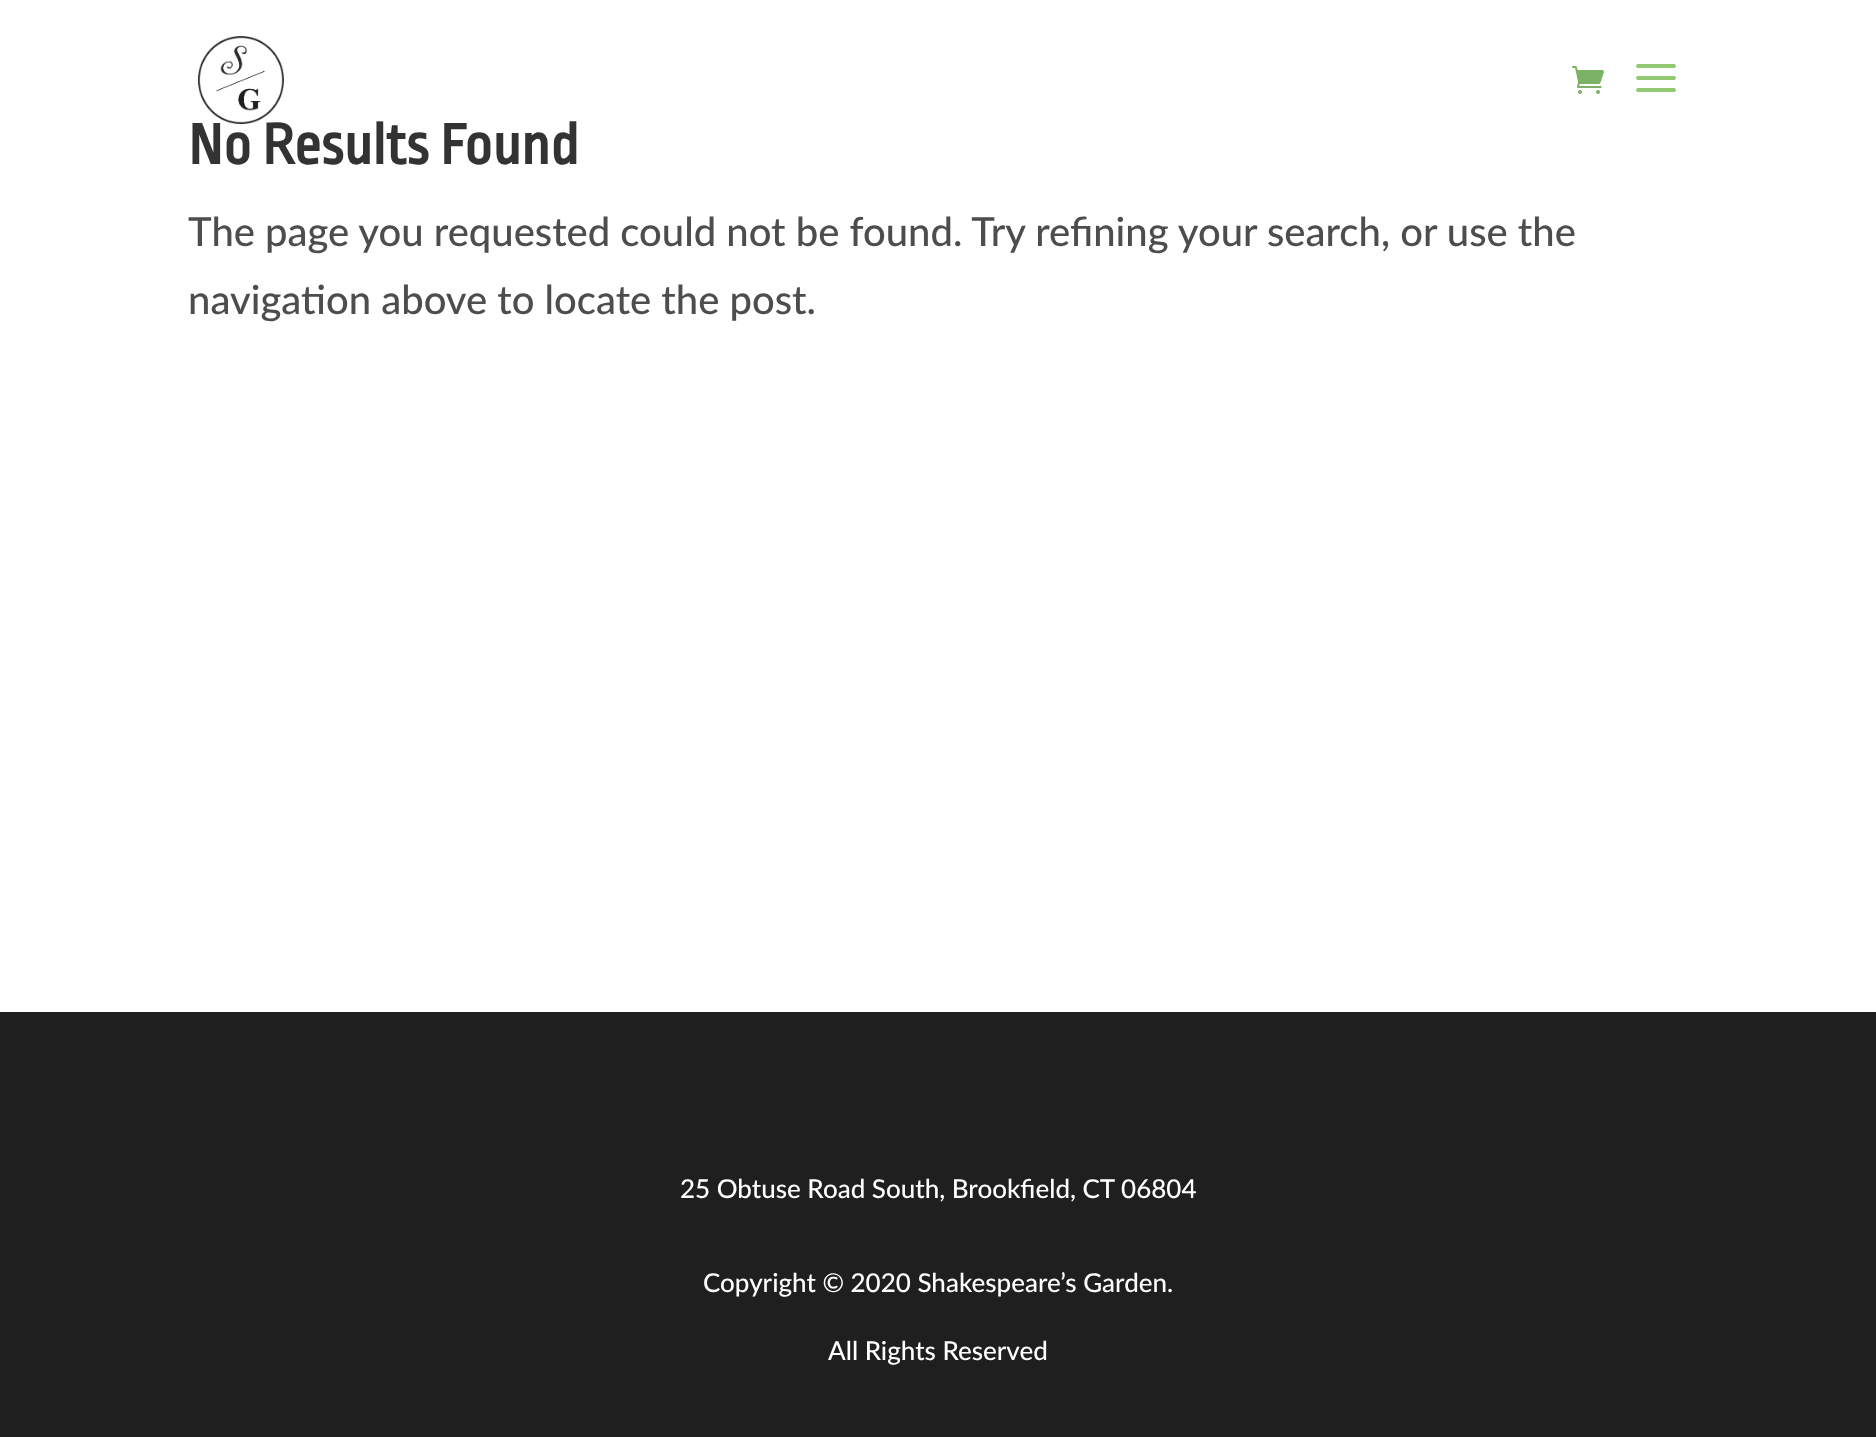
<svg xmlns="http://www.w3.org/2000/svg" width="1876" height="1437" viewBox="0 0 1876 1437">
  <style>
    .t1 { font: bold 60px Ropa Sans; fill: #333; }
    .t2 { font: 500 40px Lato; fill: #4d4d4d; }
    .t3 { font: 500 26px Lato; fill: #fff; }
  </style>
  <rect width="100%" height="100%" fill="#fff"/>
  <text x="188" y="164" class="t1">No Results Found</text>
  <image x="198" y="36" width="86" height="88" href="images/1.png"/>
  <image x="1572" y="66" width="32" height="28" href="images/2.png"/>
  <image x="1636" y="64" width="40" height="28" href="images/3.png"/>
  <text x="188" y="246" class="t2">The page you requested could not be found. Try refining your search, or use the</text>
  <text x="188" y="314" class="t2">navigation above to locate the post.</text>
  <rect x="0" y="1012" width="1876" height="425" fill="#1f1f1f"/>
  <text x="680" y="1198" class="t3">25 Obtuse Road South, Brookfield, CT 06804</text>
  <text x="703" y="1292" class="t3">Copyright © 2020 Shakespeare’s Garden.</text>
  <text x="828" y="1360" class="t3">All Rights Reserved</text>
</svg>
